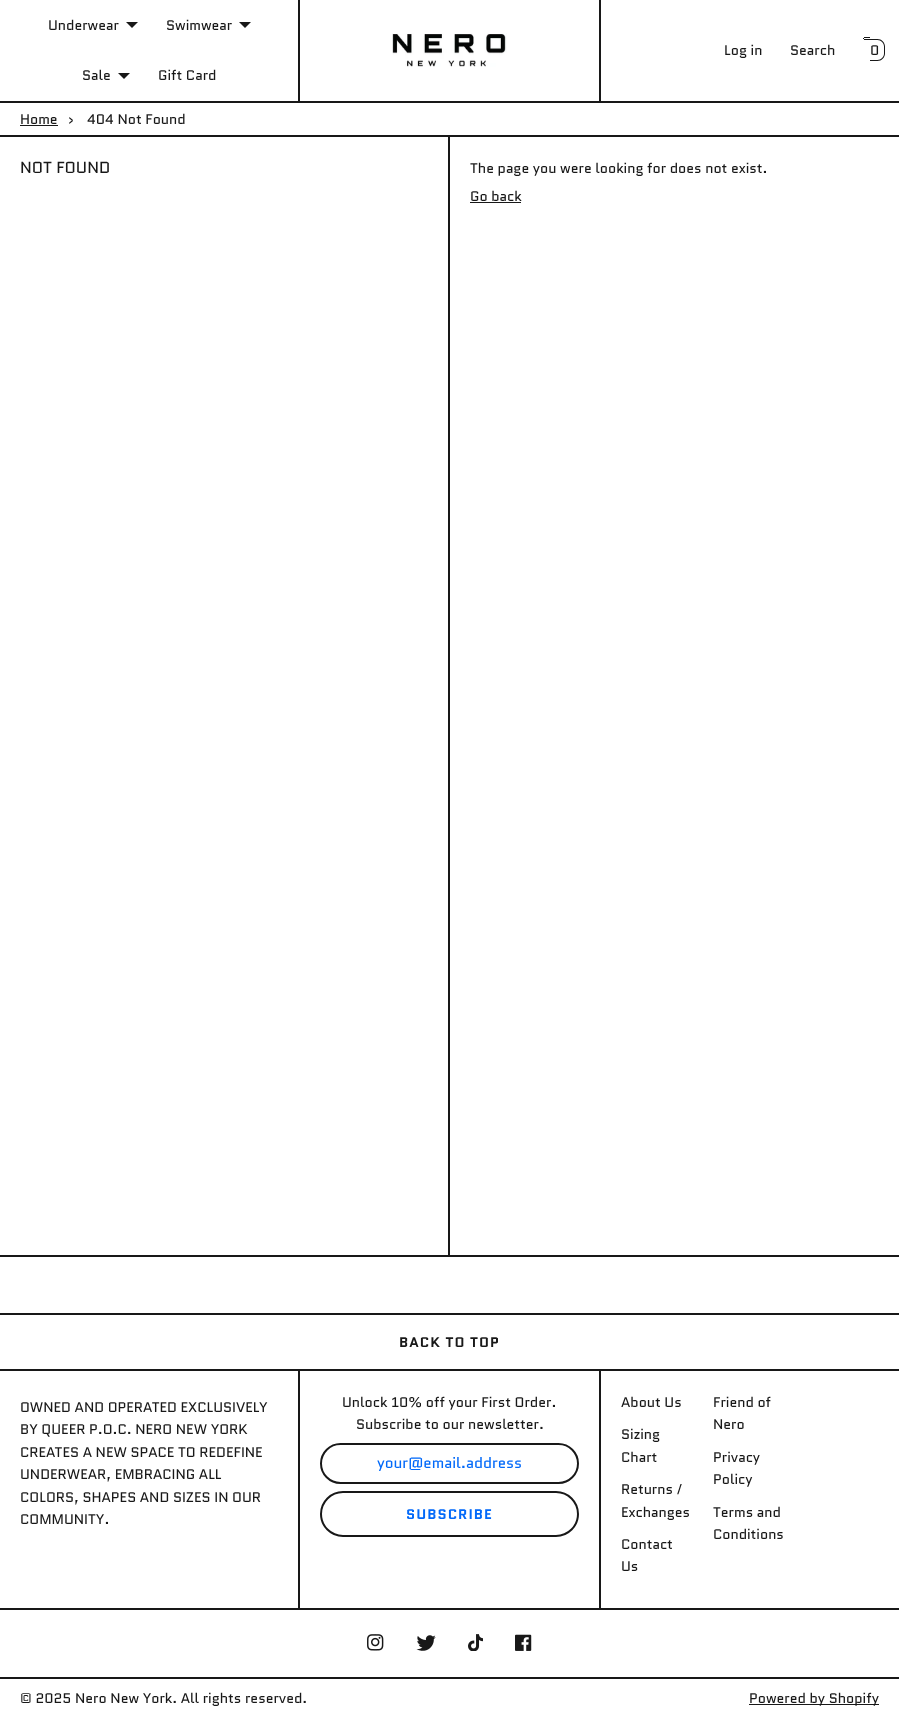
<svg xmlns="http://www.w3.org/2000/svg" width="899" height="1719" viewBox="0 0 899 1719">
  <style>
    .t1 { font: 14px Quantico; fill: #181818; }
    .t2 { font: 16px Quantico; fill: #181818; }
    .t3 { font: bold 14px Quantico; letter-spacing: 1px; fill: #181818; }
    .t4 { font: 15px Quantico; fill: #0269f9; }
    .t5 { font: bold 14px Quantico; letter-spacing: 1px; fill: #0269f9; }
  </style>
  <rect width="100%" height="100%" fill="#fff"/>
  <rect x="601" y="101" width="298" height="2" fill="#181818"/>
  <path d="M126 22H138L132 28Z" fill="#181818"/>
  <path d="M239 22H251L245 28Z" fill="#181818"/>
  <path d="M118 73H130L124 79Z" fill="#181818"/>
  <rect x="-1" y="-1" width="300" height="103" fill="none" stroke="#181818" stroke-width="2"/>
  <text x="48" y="30" class="t1">Underwear</text>
  <text x="166" y="30" class="t1">Swimwear</text>
  <text x="82" y="80" class="t1">Sale</text>
  <text x="158" y="80" class="t1">Gift Card</text>
  <rect x="299" y="-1" width="301" height="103" fill="none" stroke="#181818" stroke-width="2"/>
  <image x="392" y="33" width="115" height="34" href="images/1.png"/>
  <text x="724" y="55" class="t1">Log in</text>
  <text x="790" y="55" class="t1">Search</text>
  <path d="M870 39H877.5C881.5 39 885 42.5 885 46.5V53.5C885 57.5 881.5 61 877.5 61H870ZM870 40H877.5C881 40 884 43 884 46.5V53.5C884 57 881 60 877.5 60H870Z" fill="#181818" fill-rule="evenodd"/>
  <text x="870" y="55" class="t1">0</text>
  <rect x="864" y="37" width="6" height="1" fill="#181818"/>
  <rect x="864" y="39" width="6" height="1" fill="#181818"/>
  <rect x="863" y="38" width="1" height="1" fill="#181818"/>
  <rect x="0" y="135" width="899" height="2" fill="#181818"/>
  <text x="20" y="124" class="t1">Home</text>
  <rect x="20" y="125" width="38" height="1" fill="#181818"/>
  <text x="68" y="124" class="t1">›</text>
  <text x="87" y="124" class="t1">404 Not Found</text>
  <rect x="0" y="1255" width="899" height="2" fill="#181818"/>
  <rect x="448" y="137" width="2" height="1118" fill="#181818"/>
  <text x="20" y="173" class="t2">NOT FOUND</text>
  <text x="470" y="173" class="t1">The page you were looking for does not exist.</text>
  <text x="470" y="201" class="t1">Go back</text>
  <rect x="470" y="202" width="51" height="1" fill="#181818"/>
  <rect x="0" y="1313" width="899" height="2" fill="#181818"/>
  <text x="399" y="1347" class="t3">BACK TO TOP</text>
  <rect x="-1" y="1370" width="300" height="239" fill="none" stroke="#181818" stroke-width="2"/>
  <text x="20" y="1412" class="t1">OWNED AND OPERATED EXCLUSIVELY</text>
  <text x="20" y="1434" class="t1">BY QUEER P.O.C. NERO NEW YORK</text>
  <text x="20" y="1457" class="t1">CREATES A NEW SPACE TO REDEFINE</text>
  <text x="20" y="1479" class="t1">UNDERWEAR, EMBRACING ALL</text>
  <text x="20" y="1502" class="t1">COLORS, SHAPES AND SIZES IN OUR</text>
  <text x="20" y="1524" class="t1">COMMUNITY.</text>
  <rect x="321" y="1444" width="257" height="39" rx="19.5" fill="none" stroke="#181818" stroke-width="2"/>
  <rect x="321" y="1492" width="257" height="44" rx="22" fill="none" stroke="#181818" stroke-width="2"/>
  <rect x="299" y="1370" width="301" height="239" fill="none" stroke="#181818" stroke-width="2"/>
  <text x="342" y="1407" class="t1">Unlock 10% off your First Order.</text>
  <text x="356" y="1429" class="t1">Subscribe to our newsletter.</text>
  <text x="377" y="1468" class="t4">your@email.address</text>
  <text x="406" y="1519" class="t5">SUBSCRIBE</text>
  <rect x="600" y="1370" width="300" height="239" fill="none" stroke="#181818" stroke-width="2"/>
  <text x="621" y="1407" class="t1">About Us</text>
  <text x="621" y="1439" class="t1">Sizing</text>
  <text x="621" y="1462" class="t1">Chart</text>
  <text x="621" y="1494" class="t1">Returns /</text>
  <text x="621" y="1517" class="t1">Exchanges</text>
  <text x="621" y="1549" class="t1">Contact</text>
  <text x="621" y="1571" class="t1">Us</text>
  <text x="713" y="1407" class="t1">Friend of</text>
  <text x="713" y="1429" class="t1">Nero</text>
  <text x="713" y="1462" class="t1">Privacy</text>
  <text x="713" y="1484" class="t1">Policy</text>
  <text x="713" y="1517" class="t1">Terms and</text>
  <text x="713" y="1539" class="t1">Conditions</text>
  <rect x="-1" y="1609" width="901" height="69" fill="none" stroke="#181818" stroke-width="2"/>
  <image x="367" y="1634" width="17" height="17" href="images/2.png"/>
  <image x="416" y="1635" width="20" height="16" href="images/3.png"/>
  <image x="468" y="1634" width="15" height="17" href="images/4.png"/>
  <image x="515" y="1634" width="17" height="17" href="images/5.png"/>
  <text x="20" y="1703" class="t1">© 2025 Nero New York. All rights reserved.</text>
  <rect x="749" y="1704" width="130" height="1" fill="#181818"/>
  <text x="749" y="1703" class="t1">Powered by Shopify</text>
</svg>
